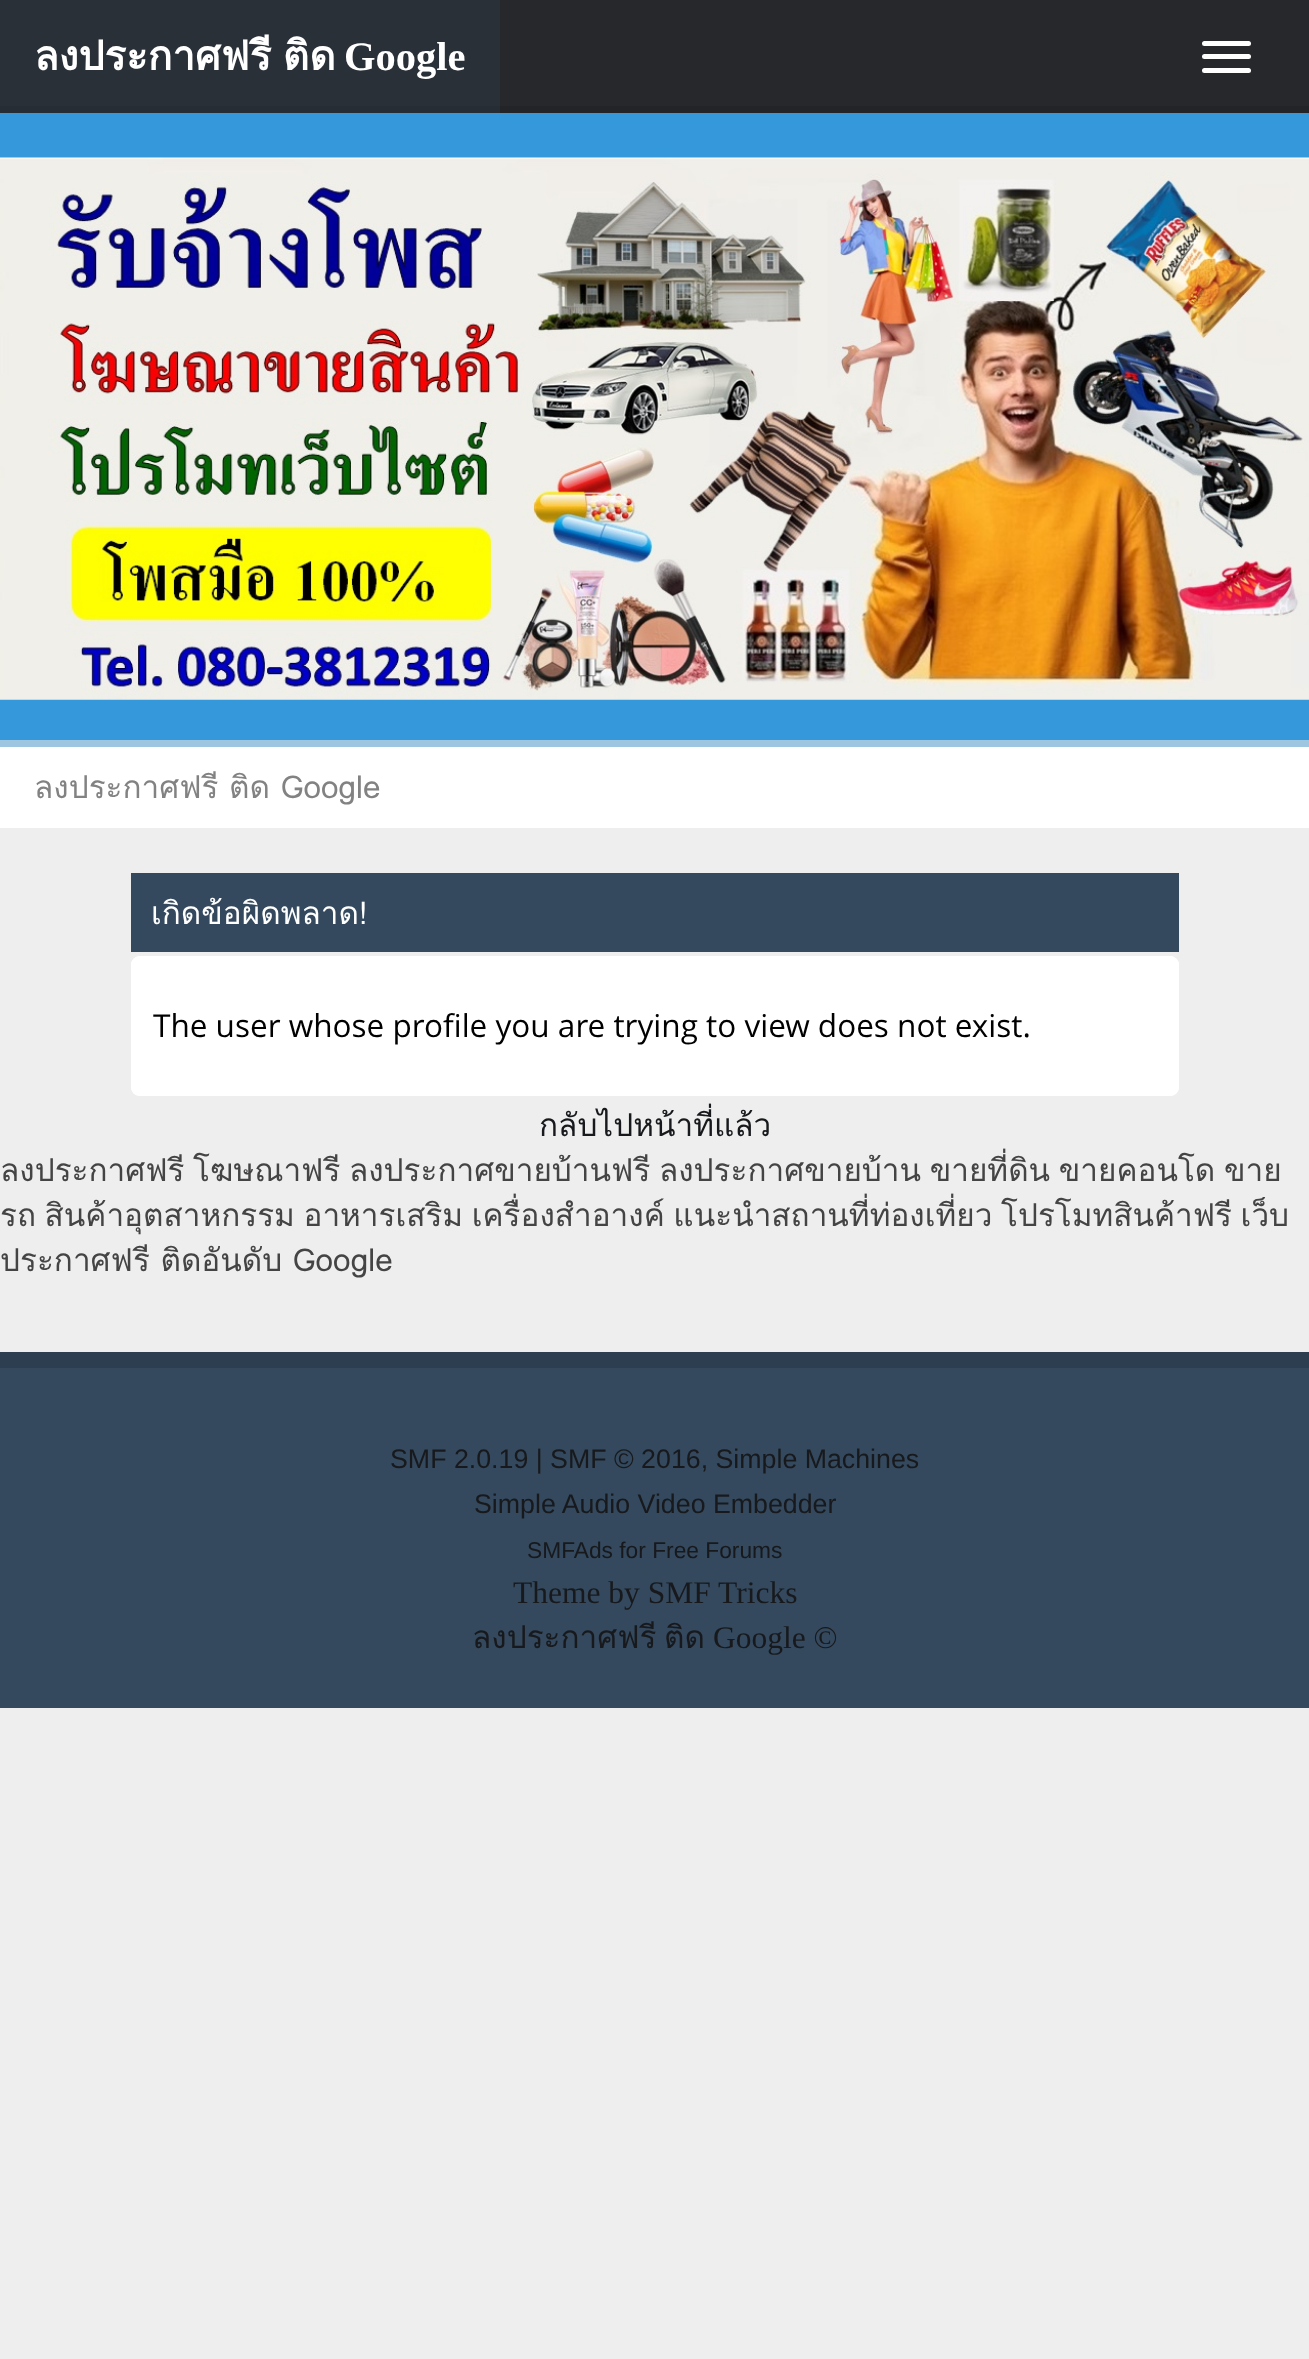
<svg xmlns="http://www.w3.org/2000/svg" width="1309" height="2359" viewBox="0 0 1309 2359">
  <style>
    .t1 { font: bold 40.5px Loma; fill: #fff; }
    .t2 { font: bold 40.5px Liberation Serif; fill: #fff; }
    .t3 { font: 31.5px Loma; fill: #828282; }
    .t4 { font: 31.5px Loma; fill: #fff; }
    .t5 { font: 31.5px Open Sans; fill: #000; }
    .t6 { font: 31.5px Loma; fill: #17191c; }
    .t7 { font: 31.5px Loma; fill: #444; }
    .t8 { font: 26.75px Liberation Sans; fill: #17191c; }
    .t9 { font: 22.75px Liberation Sans; fill: #17191c; }
    .t10 { font: 31.5px Liberation Serif; fill: #17191c; }
  </style>
  <defs>
    <clipPath id="clip1"><rect x="151" y="873" width="1028" height="79"/></clipPath>
  </defs>
  <rect width="100%" height="100%" fill="#eee"/>
  <rect x="500" y="0" width="809" height="106" fill="#26282b"/>
  <rect x="500" y="106" width="809" height="7" fill="#222427"/>
  <rect x="0" y="0" width="500" height="106" fill="#2a3038"/>
  <rect x="0" y="106" width="500" height="7" fill="#272d35"/>
  <text x="34" y="70" word-spacing="-2" class="t1">ลงประกาศฟรี ติด</text>
  <text x="344" y="70" class="t2">Google</text>
  <rect x="1202" y="41" width="49" height="5" rx="2.5" fill="#fff"/>
  <rect x="1202" y="54" width="49" height="5" rx="2.5" fill="#fff"/>
  <rect x="1202" y="68" width="49" height="5" rx="2.5" fill="#fff"/>
  <rect x="0" y="113" width="1309" height="627" fill="#3498db"/>
  <rect x="0" y="740" width="1309" height="7" fill="#9fc6e0"/>
  <image x="0" y="157" width="1309" height="543" href="images/1.png"/>
  <rect x="0" y="747" width="1309" height="81" fill="#fff"/>
  <text x="34" y="798" class="t3">ลงประกาศฟรี ติด Google</text>
  <rect x="131" y="873" width="1048" height="79" fill="#34495e"/>
  <g clip-path="url(#clip1)">
    <text x="151" y="924" class="t4">เกิดข้อผิดพลาด!</text>
  </g>
  <rect x="131" y="956" width="1048" height="140" rx="9" fill="#fff"/>
  <path d="M140 956H1170C1175 956 1179 960 1179 965V981H131V965C131 960 135 956 140 956Z" fill="#fff"/>
  <text x="153" y="1037" class="t5">The user whose profile you are trying to view does not exist.</text>
  <path d="M131 1071H1179V1087C1179 1092 1175 1096 1170 1096H140C135 1096 131 1092 131 1087Z" fill="#fff"/>
  <text x="539" y="1136" class="t6">กลับไปหน้าที่แล้ว</text>
  <text x="0" y="1181" word-spacing="-2" class="t7">ลงประกาศฟรี โฆษณาฟรี ลงประกาศขายบ้านฟรี ลงประกาศขายบ้าน ขายที่ดิน ขายคอนโด ขาย</text>
  <text x="0" y="1226" word-spacing="-2" class="t7">รถ สินค้าอุตสาหกรรม อาหารเสริม เครื่องสำอางค์ แนะนำสถานที่ท่องเที่ยว โปรโมทสินค้าฟรี เว็บ</text>
  <text x="0" y="1271" class="t7">ประกาศฟรี ติดอันดับ Google</text>
  <path d="M0 1352V1368H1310V1692V1352Z" fill="#2c3e50"/>
  <rect x="0" y="1368" width="1309" height="340" fill="#34495e"/>
  <text x="390" y="1468" class="t8">SMF 2.0.19 | SMF © 2016, Simple Machines</text>
  <text x="474" y="1513" class="t8">Simple Audio Video Embedder</text>
  <text x="527" y="1558" class="t9">SMFAds for Free Forums</text>
  <text x="513" y="1603" class="t10">Theme by SMF Tricks</text>
  <text x="472" y="1648" class="t6">ลงประกาศฟรี</text>
  <text x="664" y="1648" class="t6">ติด</text>
  <text x="713" y="1648" class="t10">Google ©</text>
</svg>
